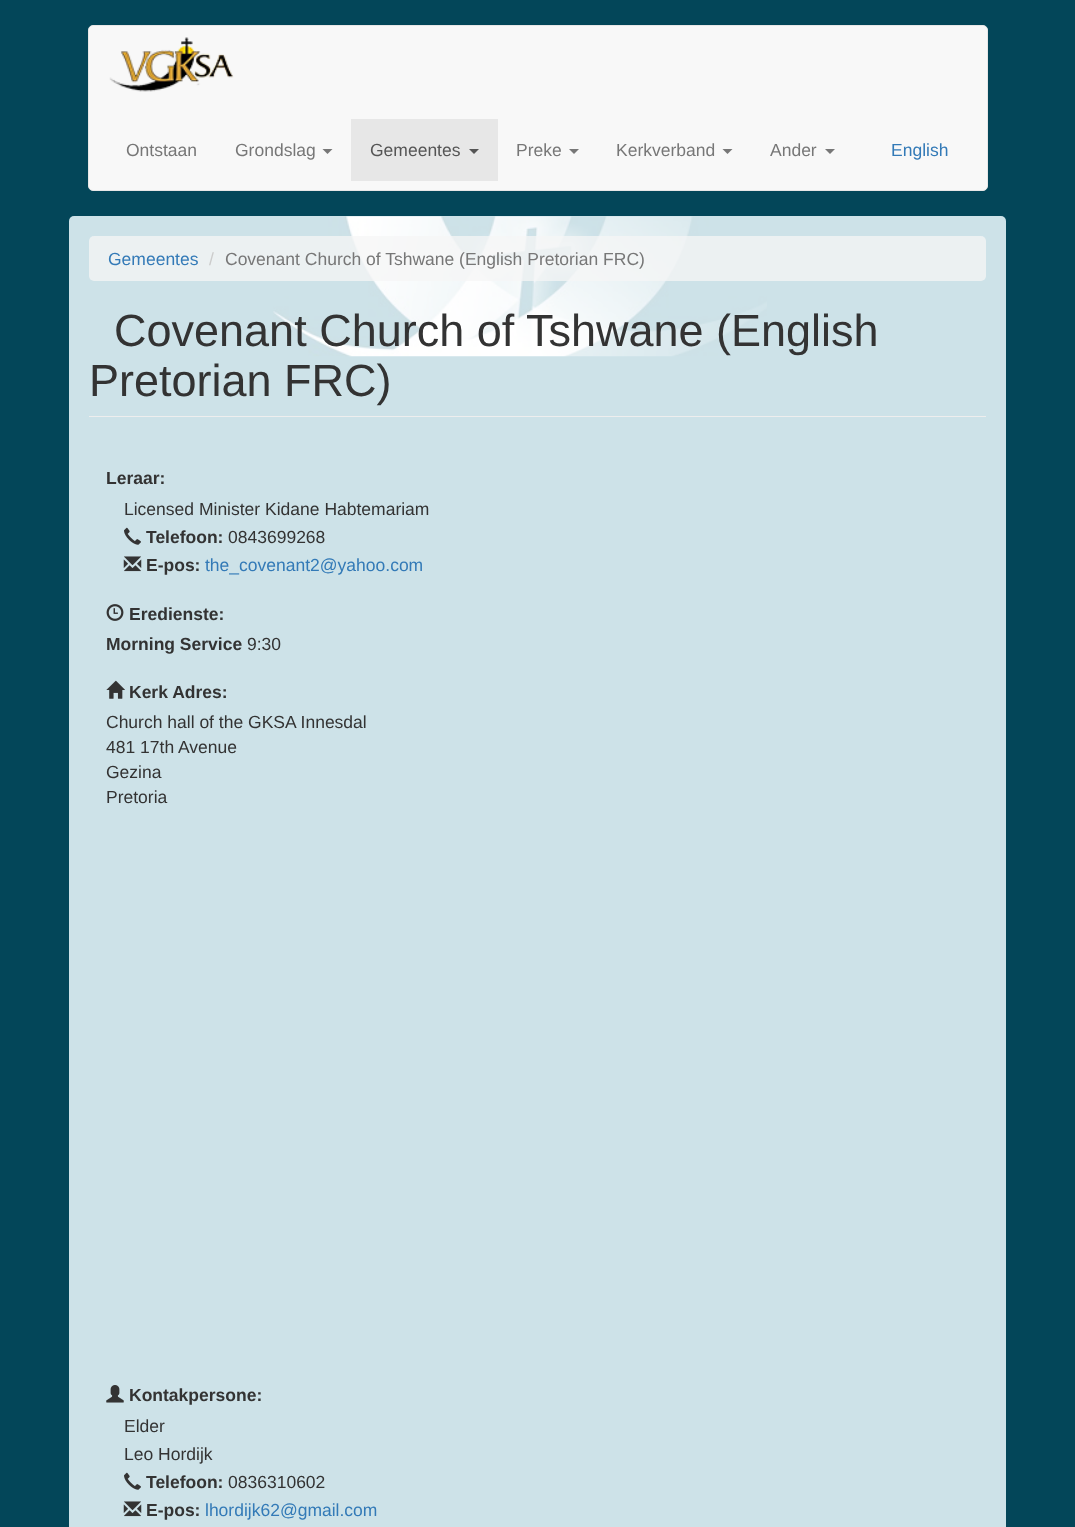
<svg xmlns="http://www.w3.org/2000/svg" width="1075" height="1527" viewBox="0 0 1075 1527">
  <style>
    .t1 { font: 17.5px Liberation Sans; fill: #777; }
    .t2 { font: 17.5px Liberation Sans; fill: #555; }
    .t3 { font: 17.5px Liberation Sans; fill: #337ab7; }
    .t4 { font: 17.5px Liberation Sans; fill: #ccc; }
    .t5 { font: 45px Liberation Sans; fill: #333; }
    .t6 { font: bold 17.5px Liberation Sans; fill: #333; }
    .t7 { font: 17.5px Liberation Sans; fill: #333; }
  </style>
  <rect width="100%" height="100%" fill="#034659"/>
  <rect x="88.5" y="25.5" width="899" height="165" rx="4.5" fill="#f8f8f8" stroke="#e7e7e7"/>
  <image x="109" y="37" width="125" height="55" href="images/1.png"/>
  <text x="126" y="156" class="t1">Ontstaan</text>
  <text x="235" y="156" class="t1">Grondslag</text>
  <path d="M322.5 149H332.5L327.5 154Z" fill="#777"/>
  <rect x="351" y="119" width="147" height="62" fill="#e7e7e7"/>
  <text x="370" y="156" class="t2">Gemeentes</text>
  <path d="M469 149H479L474 154Z" fill="#555"/>
  <text x="516" y="156" class="t1">Preke</text>
  <path d="M569 149H579L574 154Z" fill="#777"/>
  <text x="616" y="156" class="t1">Kerkverband</text>
  <path d="M722.5 149H732.5L727.5 154Z" fill="#777"/>
  <text x="770" y="156" class="t1">Ander</text>
  <path d="M825 149H835L830 154Z" fill="#777"/>
  <text x="891" y="156" class="t3">English</text>
  <rect x="69" y="216" width="937" height="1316" rx="5" fill="#cde2e8"/>
  <image x="273" y="216" width="494" height="141" href="images/2.png"/>
  <rect x="89" y="236" width="897" height="45" rx="5" fill="#f5f5f5bf"/>
  <text x="108" y="265" class="t3">Gemeentes</text>
  <text x="209" y="265" class="t4">/</text>
  <text x="225" y="265" class="t1">Covenant Church of Tshwane (English Pretorian FRC)</text>
  <rect x="89" y="416" width="897" height="1" fill="#eee"/>
  <text x="114" y="346" class="t5">Covenant Church of Tshwane (English</text>
  <text x="89" y="396" class="t5">Pretorian FRC)</text>
  <text x="106" y="484" class="t6">Leraar:</text>
  <text x="124" y="515" class="t7">Licensed Minister Kidane Habtemariam</text>
  <image x="124" y="527" width="17" height="18" href="images/3.png"/>
  <text x="146" y="543" class="t6">Telefoon:</text>
  <text x="228" y="543" class="t7">0843699268</text>
  <image x="123" y="556" width="19" height="16" href="images/4.png"/>
  <text x="146" y="571" class="t6">E-pos:</text>
  <text x="205" y="571" class="t3">the_covenant2@yahoo.com</text>
  <image x="106" y="604" width="18" height="17" href="images/5.png"/>
  <text x="129" y="620" class="t6">Eredienste:</text>
  <text x="106" y="650" class="t6">Morning Service</text>
  <text x="247" y="650" class="t7">9:30</text>
  <image x="106" y="680" width="19" height="19" href="images/6.png"/>
  <text x="129" y="698" class="t6">Kerk Adres:</text>
  <text x="106" y="728" class="t7">Church hall of the GKSA Innesdal</text>
  <text x="106" y="753" class="t7">481 17th Avenue</text>
  <text x="106" y="778" class="t7">Gezina</text>
  <text x="106" y="803" class="t7">Pretoria</text>
  <image x="106" y="1385" width="18" height="18" href="images/7.png"/>
  <text x="129" y="1401" class="t6">Kontakpersone:</text>
  <text x="124" y="1432" class="t7">Elder</text>
  <text x="124" y="1460" class="t7">Leo Hordijk</text>
  <image x="124" y="1472" width="17" height="18" href="images/3.png"/>
  <text x="146" y="1488" class="t6">Telefoon:</text>
  <text x="228" y="1488" class="t7">0836310602</text>
  <image x="123" y="1501" width="19" height="16" href="images/4.png"/>
  <text x="146" y="1516" class="t6">E-pos:</text>
  <text x="205" y="1516" class="t3">lhordijk62@gmail.com</text>
</svg>
